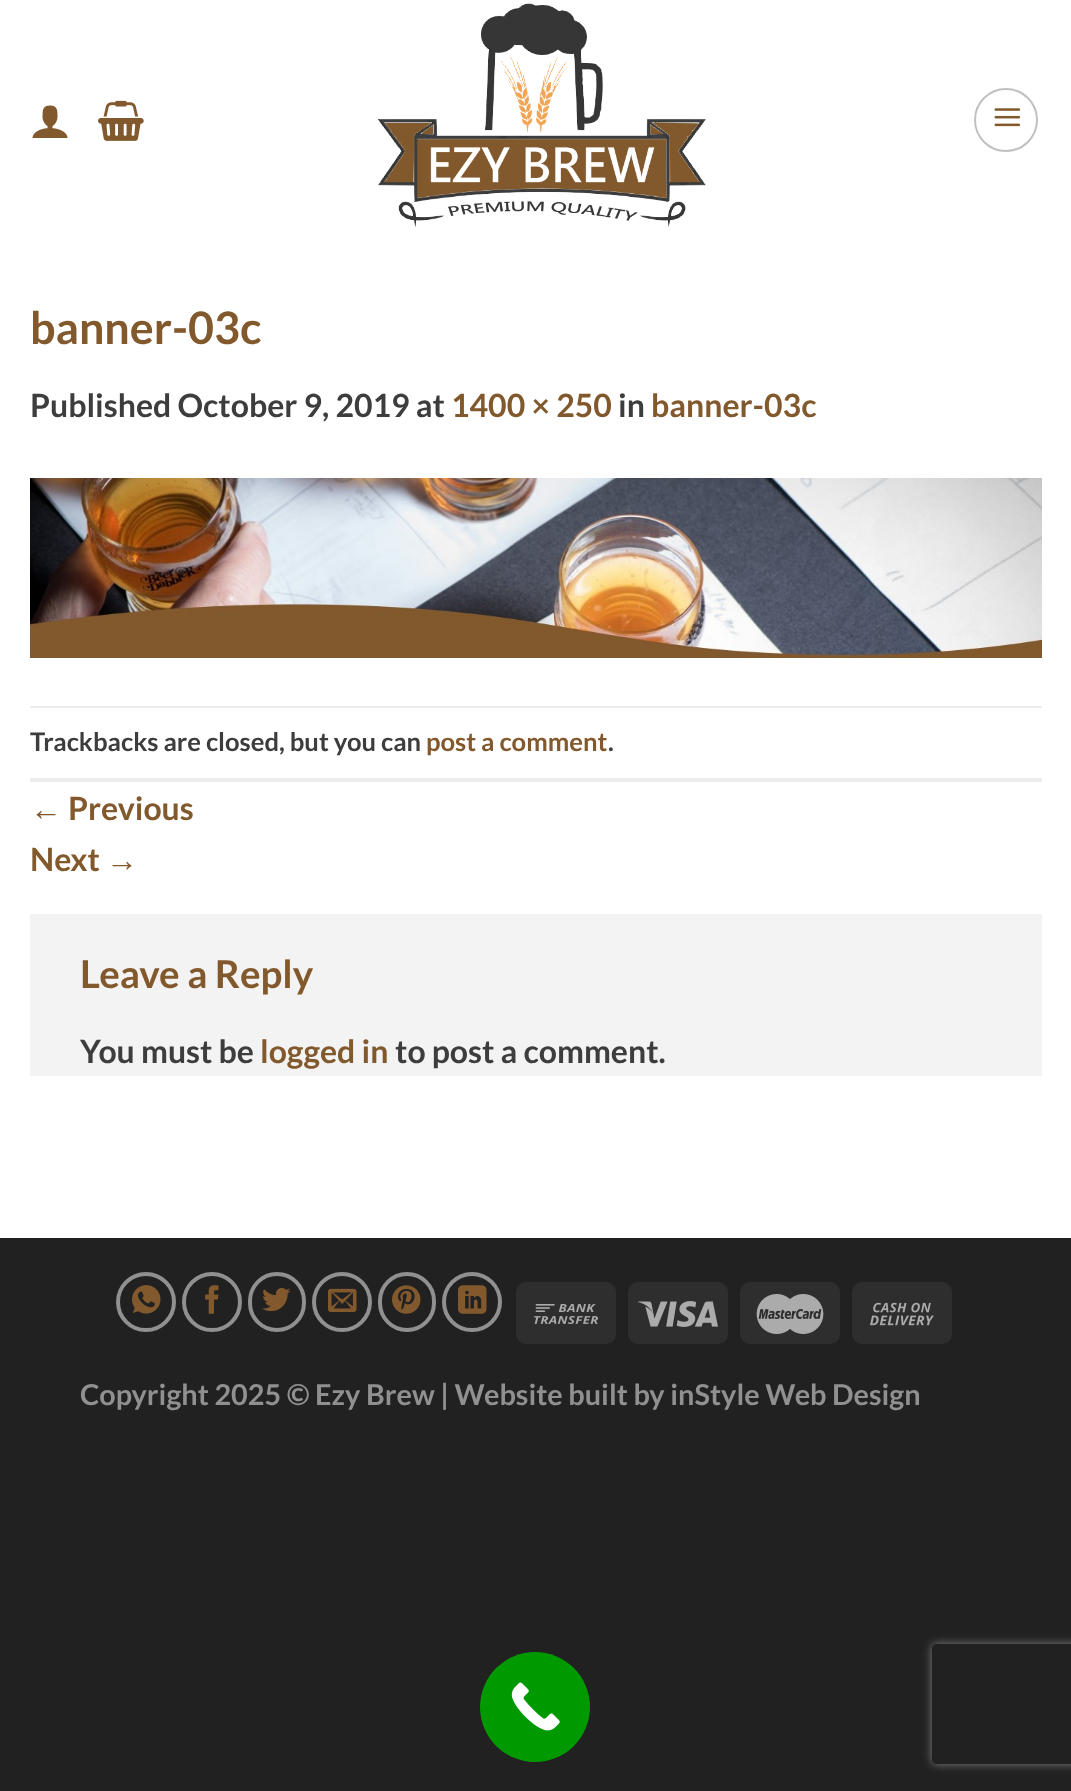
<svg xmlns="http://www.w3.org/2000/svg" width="1071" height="1791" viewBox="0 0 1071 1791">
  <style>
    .t1 { font: bold 44.75px Lato; fill: #82592d; }
    .t2 { font: bold 32px Lato; fill: #3d3d3d; }
    .t3 { font: bold 32px Lato; fill: #82592d; }
    .t4 { font: bold 25.6px Lato; fill: #3d3d3d; }
    .t5 { font: bold 25.6px Lato; fill: #82592d; }
    .t6 { font: 32px Liberation Sans; fill: #82592d; }
    .t7 { font: bold 38.5px Lato; fill: #82592d; }
    .t8 { font: bold 28.8px Lato; fill: #909090; }
  </style>
  <defs>
    <clipPath id="clip1"><path d="M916 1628H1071V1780H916ZM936 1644H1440C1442 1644 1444 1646 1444 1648V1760C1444 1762 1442 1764 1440 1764H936C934 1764 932 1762 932 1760V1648C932 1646 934 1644 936 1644Z" clip-rule="evenodd"/></clipPath>
  </defs>
  <rect width="100%" height="100%" fill="#212121"/>
  <rect x="0" y="0" width="1071" height="1238" fill="#fff"/>
  <image x="32" y="105" width="36" height="33" href="images/1.png"/>
  <image x="98" y="100" width="46" height="41" href="images/2.png"/>
  <image x="378" y="3" width="328" height="224" href="images/3.png"/>
  <circle cx="1006" cy="120" r="31" fill="none" stroke="#c0c0c0" stroke-width="2"/>
  <image x="994" y="108" width="27" height="19" href="images/4.png"/>
  <text x="30" y="344" class="t1">banner-03c</text>
  <text x="30" y="417" class="t2">Published October 9, 2019 at</text>
  <text x="451" y="417" class="t3">1400 × 250</text>
  <text x="618" y="417" class="t2">in</text>
  <text x="651" y="417" class="t3">banner-03c</text>
  <image x="30" y="478" width="1012" height="180" href="images/5.png"/>
  <rect x="30" y="706" width="1012" height="2" fill="#ececec"/>
  <rect x="30" y="778" width="1012" height="4" fill="#ececec"/>
  <text x="30" y="751" class="t4">Trackbacks are closed, but you can</text>
  <text x="426" y="751" class="t5">post a comment</text>
  <text x="608" y="751" class="t4">.</text>
  <text x="30" y="820" class="t6">←</text>
  <text x="68" y="820" class="t3">Previous</text>
  <text x="30" y="871" class="t3">Next</text>
  <text x="106" y="871" class="t6">→</text>
  <rect x="30" y="914" width="1012" height="162" fill="#f3f3f3"/>
  <text x="80" y="988" class="t7">Leave a Reply</text>
  <text x="80" y="1063" class="t2">You must be</text>
  <text x="260" y="1063" class="t3">logged in</text>
  <text x="395" y="1063" class="t2">to post a comment.</text>
  <circle cx="146" cy="1302" r="28" fill="none" stroke="#909090" stroke-width="4"/>
  <image x="132" y="1285" width="29" height="29" href="images/6.png"/>
  <circle cx="212" cy="1302" r="28" fill="none" stroke="#909090" stroke-width="4"/>
  <image x="205" y="1285" width="14" height="29" href="images/7.png"/>
  <rect x="250" y="1274" width="54" height="56" rx="27" fill="none" stroke="#909090" stroke-width="4"/>
  <image x="262" y="1288" width="29" height="24" href="images/8.png"/>
  <circle cx="342" cy="1302" r="28" fill="none" stroke="#909090" stroke-width="4"/>
  <image x="328" y="1288" width="29" height="24" href="images/9.png"/>
  <rect x="380" y="1274" width="54" height="56" rx="27" fill="none" stroke="#909090" stroke-width="4"/>
  <image x="392" y="1285" width="29" height="29" href="images/10.png"/>
  <circle cx="472" cy="1302" r="28" fill="none" stroke="#909090" stroke-width="4"/>
  <image x="458" y="1285" width="29" height="29" href="images/11.png"/>
  <rect x="516" y="1282" width="100" height="62" rx="10" fill="#2e2e2e"/>
  <image x="534" y="1304" width="64" height="20" href="images/12.png"/>
  <rect x="628" y="1282" width="100" height="62" rx="10" fill="#2e2e2e"/>
  <image x="638" y="1301" width="80" height="26" href="images/13.png"/>
  <rect x="740" y="1282" width="100" height="62" rx="10" fill="#2e2e2e"/>
  <image x="756" y="1294" width="68" height="40" href="images/14.png"/>
  <rect x="852" y="1282" width="100" height="62" rx="10" fill="#2e2e2e"/>
  <image x="870" y="1302" width="64" height="24" href="images/15.png"/>
  <text x="80" y="1405" class="t8">Copyright 2025 © Ezy Brew | Website built by inStyle Web Design</text>
  <circle cx="535" cy="1707" r="55" fill="#090"/>
  <image x="511" y="1682" width="49" height="49" href="images/16.png"/>
  <g clip-path="url(#clip1)">
    <rect x="932" y="1644" width="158" height="120" rx="4" fill="#808080" filter="blur(5px)"/>
  </g>
</svg>
